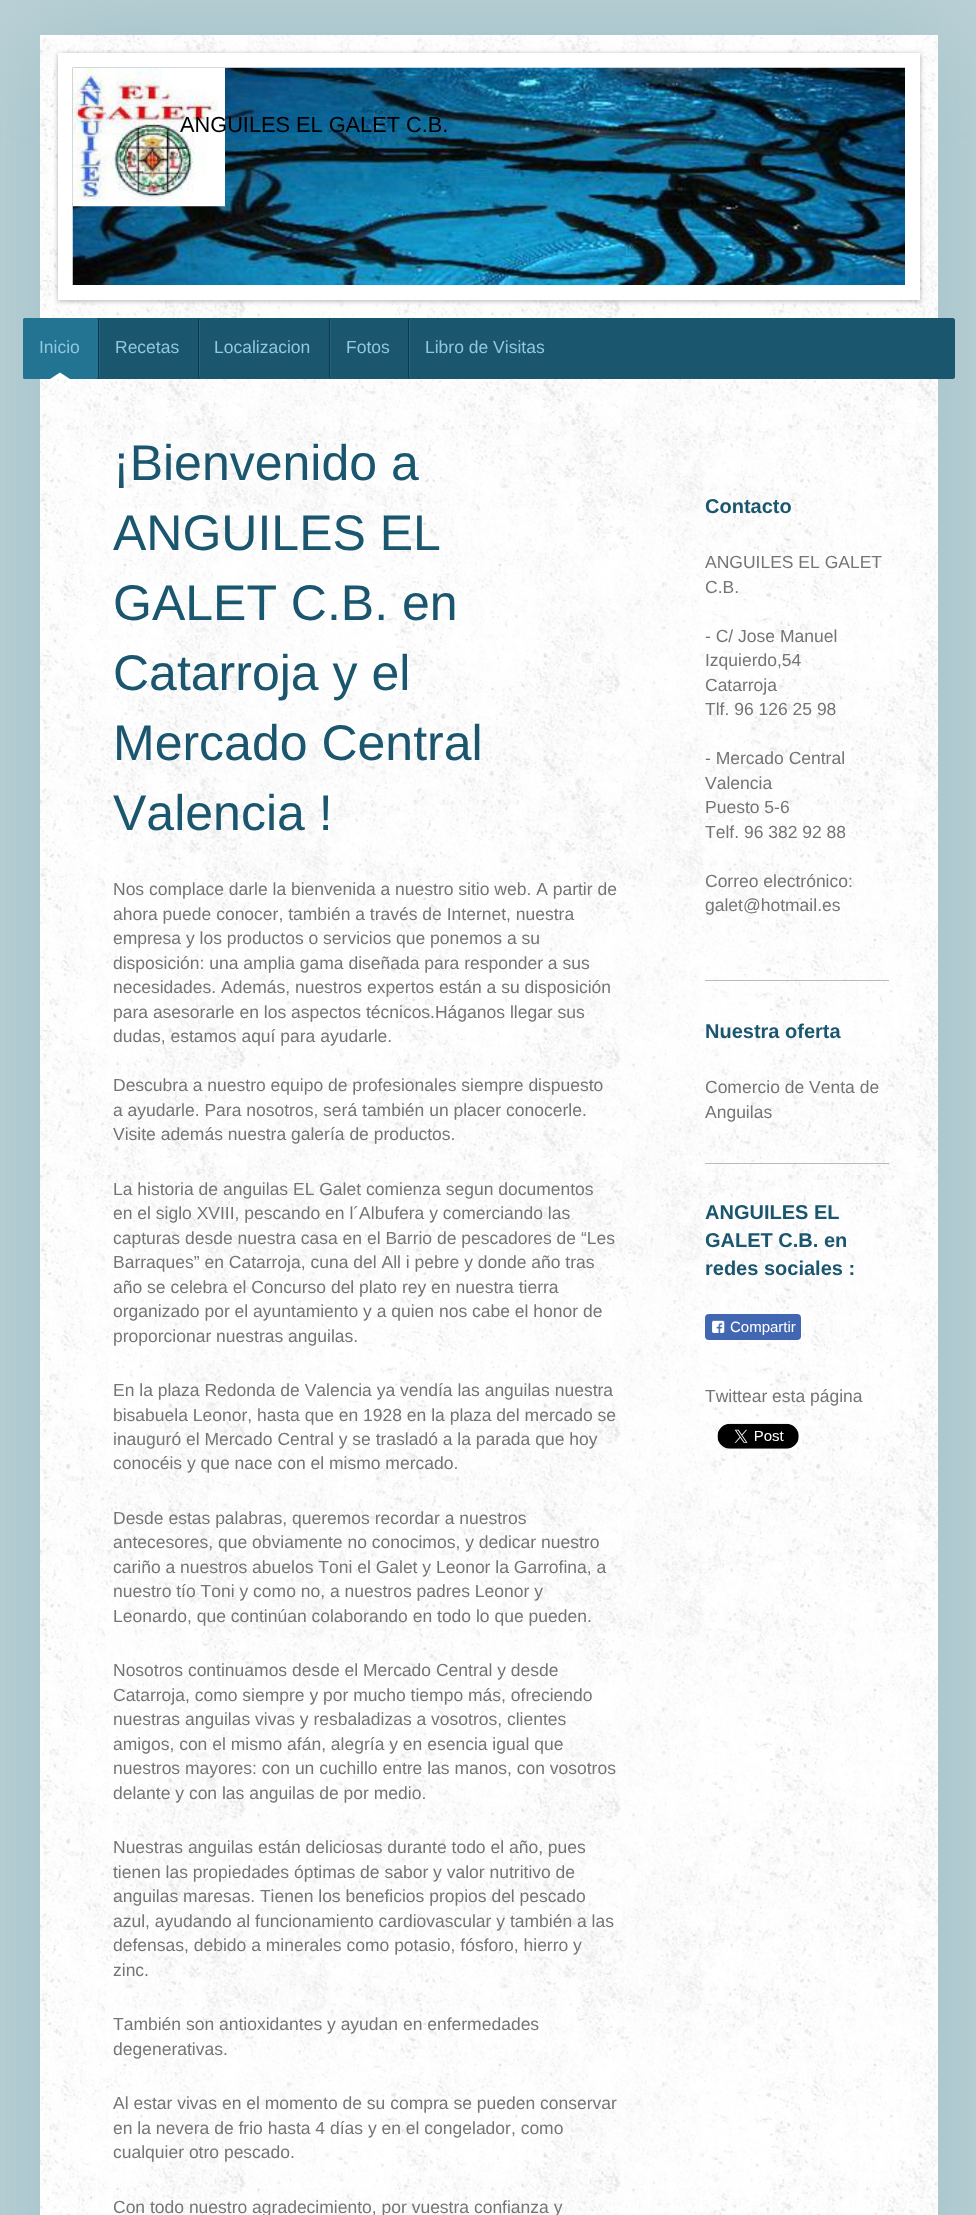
<svg xmlns="http://www.w3.org/2000/svg" width="976" height="2215" viewBox="0 0 976 2215">
  <style>*{font-kerning:none!important;font-variant-ligatures:none!important}</style>
  <style>
    .t1 { font: 21.75px Liberation Sans; fill: #000; }
    .t2 { font: 17.5px Liberation Sans; fill: #8fc8df; }
    .t3 { font: 50px Liberation Sans; fill: #1a566e; }
    .t4 { font: 17.5px Liberation Sans; fill: #757575; }
    .t5 { font: bold 20px Liberation Sans; fill: #1a566e; }
    .t6 { font: 15px Liberation Sans; fill: #fff; }
  </style>
  <rect width="100%" height="100%" fill="#bad1d6"/>
  <rect x="40" y="35" width="898" height="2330" fill="#9dbec5" filter="blur(50px)"/>
  <rect x="40" y="35" width="898" height="2180" fill="#fff"/>
  <image x="40" y="35" width="898" height="2180" href="images/1.png"/>
  <rect x="58" y="54" width="862" height="247" fill="#0000004d" filter="blur(2.5px)"/>
  <rect x="65.5" y="60.5" width="847" height="232" fill="none" stroke="#fff" stroke-width="15"/>
  <image x="72" y="67" width="833" height="218" href="images/2.png"/>
  <image x="72" y="67" width="153" height="140" href="images/3.png"/>
  <text x="180" y="132" class="t1">ANGUILES EL GALET C.B.</text>
  <rect x="23" y="318" width="932" height="61" rx="2.5" fill="#1a566e"/>
  <rect x="23" y="318" width="75" height="61" rx="2.5" fill="#237393"/>
  <text x="39" y="353" class="t2">Inicio</text>
  <path d="M70 379H50L60 372.5Z" fill="#fff"/>
  <path d="M100 318C99 318 98 319 98 320V376C98 378 99 379 100 379H102C101 379 100 378 100 376V320C100 319 101 318 102 318Z" fill="#1f6683"/>
  <path d="M100 318C99 318 98 319 98 320V376C98 378 99 379 100 379H101C100 379 99 378 99 376V320C99 319 100 318 101 318Z" fill="#103645"/>
  <text x="115" y="353" class="t2">Recetas</text>
  <path d="M200 318C199 318 198 319 198 320V376C198 378 199 379 200 379H202C201 379 200 378 200 376V320C200 319 201 318 202 318Z" fill="#1f6683"/>
  <path d="M200 318C199 318 198 319 198 320V376C198 378 199 379 200 379H201C200 379 199 378 199 376V320C199 319 200 318 201 318Z" fill="#103645"/>
  <text x="214" y="353" class="t2">Localizacion</text>
  <path d="M332 318C330 318 329 319 329 320V376C329 378 330 379 332 379H334C332 379 331 378 331 376V320C331 319 332 318 334 318Z" fill="#1f6683"/>
  <path d="M332 318C330 318 329 319 329 320V376C329 378 330 379 332 379C331 379 330 378 330 376V320C330 319 331 318 332 318Z" fill="#103645"/>
  <text x="346" y="353" class="t2">Fotos</text>
  <path d="M410 318C409 318 408 319 408 320V376C408 378 409 379 410 379H412C411 379 410 378 410 376V320C410 319 411 318 412 318Z" fill="#1f6683"/>
  <path d="M410 318C409 318 408 319 408 320V376C408 378 409 379 410 379H411C410 379 409 378 409 376V320C409 319 410 318 411 318Z" fill="#103645"/>
  <text x="425" y="353" class="t2">Libro de Visitas</text>
  <text x="113" y="480" class="t3">¡Bienvenido a</text>
  <text x="113" y="550" class="t3">ANGUILES EL</text>
  <text x="113" y="620" class="t3">GALET C.B. en</text>
  <text x="113" y="690" class="t3">Catarroja y el</text>
  <text x="113" y="760" class="t3">Mercado Central</text>
  <text x="113" y="830" class="t3">Valencia !</text>
  <text x="113" y="895" class="t4">Nos complace darle la bienvenida a nuestro sitio web. A partir de</text>
  <text x="113" y="920" class="t4">ahora puede conocer, también a través de Internet, nuestra</text>
  <text x="113" y="944" class="t4">empresa y los productos o servicios que ponemos a su</text>
  <text x="113" y="969" class="t4">disposición: una amplia gama diseñada para responder a sus</text>
  <text x="113" y="993" class="t4">necesidades. Además, nuestros expertos están a su disposición</text>
  <text x="113" y="1018" class="t4">para asesorarle en los aspectos técnicos.Háganos llegar sus</text>
  <text x="113" y="1042" class="t4">dudas, estamos aquí para ayudarle.</text>
  <text x="113" y="1091" class="t4">Descubra a nuestro equipo de profesionales siempre dispuesto</text>
  <text x="113" y="1116" class="t4">a ayudarle. Para nosotros, será también un placer conocerle.</text>
  <text x="113" y="1140" class="t4">Visite además nuestra galería de productos.</text>
  <text x="113" y="1195" class="t4">La historia de anguilas EL Galet comienza segun documentos</text>
  <text x="113" y="1219" class="t4">en el siglo XVIII, pescando en l´Albufera y comerciando las</text>
  <text x="113" y="1244" class="t4">capturas desde nuestra casa en el Barrio de pescadores de “Les</text>
  <text x="113" y="1268" class="t4">Barraques” en Catarroja, cuna del All i pebre y donde año tras</text>
  <text x="113" y="1293" class="t4">año se celebra el Concurso del plato rey en nuestra tierra</text>
  <text x="113" y="1317" class="t4">organizado por el ayuntamiento y a quien nos cabe el honor de</text>
  <text x="113" y="1342" class="t4">proporcionar nuestras anguilas.</text>
  <text x="113" y="1396" class="t4">En la plaza Redonda de Valencia ya vendía las anguilas nuestra</text>
  <text x="113" y="1421" class="t4">bisabuela Leonor, hasta que en 1928 en la plaza del mercado se</text>
  <text x="113" y="1445" class="t4">inauguró el Mercado Central y se trasladó a la parada que hoy</text>
  <text x="113" y="1469" class="t4">conocéis y que nace con el mismo mercado.</text>
  <text x="113" y="1524" class="t4">Desde estas palabras, queremos recordar a nuestros</text>
  <text x="113" y="1548" class="t4">antecesores, que obviamente no conocimos, y dedicar nuestro</text>
  <text x="113" y="1573" class="t4">cariño a nuestros abuelos Toni el Galet y Leonor la Garrofina, a</text>
  <text x="113" y="1597" class="t4">nuestro tío Toni y como no, a nuestros padres Leonor y</text>
  <text x="113" y="1622" class="t4">Leonardo, que continúan colaborando en todo lo que pueden.</text>
  <text x="113" y="1676" class="t4">Nosotros continuamos desde el Mercado Central y desde</text>
  <text x="113" y="1701" class="t4">Catarroja, como siempre y por mucho tiempo más, ofreciendo</text>
  <text x="113" y="1725" class="t4">nuestras anguilas vivas y resbaladizas a vosotros, clientes</text>
  <text x="113" y="1750" class="t4">amigos, con el mismo afán, alegría y en esencia igual que</text>
  <text x="113" y="1774" class="t4">nuestros mayores: con un cuchillo entre las manos, con vosotros</text>
  <text x="113" y="1799" class="t4">delante y con las anguilas de por medio.</text>
  <text x="113" y="1853" class="t4">Nuestras anguilas están deliciosas durante todo el año, pues</text>
  <text x="113" y="1878" class="t4">tienen las propiedades óptimas de sabor y valor nutritivo de</text>
  <text x="113" y="1902" class="t4">anguilas maresas. Tienen los beneficios propios del pescado</text>
  <text x="113" y="1927" class="t4">azul, ayudando al funcionamiento cardiovascular y también a las</text>
  <text x="113" y="1951" class="t4">defensas, debido a minerales como potasio, fósforo, hierro y</text>
  <text x="113" y="1976" class="t4">zinc.</text>
  <text x="113" y="2030" class="t4">También son antioxidantes y ayudan en enfermedades</text>
  <text x="113" y="2055" class="t4">degenerativas.</text>
  <text x="113" y="2109" class="t4">Al estar vivas en el momento de su compra se pueden conservar</text>
  <text x="113" y="2134" class="t4">en la nevera de frio hasta 4 días y en el congelador, como</text>
  <text x="113" y="2158" class="t4">cualquier otro pescado.</text>
  <text x="113" y="2213" class="t4">Con todo nuestro agradecimiento, por vuestra confianza y</text>
  <text x="705" y="513" class="t5">Contacto</text>
  <text x="705" y="568" class="t4">ANGUILES EL GALET</text>
  <text x="705" y="593" class="t4">C.B.</text>
  <text x="705" y="642" class="t4">- C/ Jose Manuel</text>
  <text x="705" y="666" class="t4">Izquierdo,54</text>
  <text x="705" y="691" class="t4">Catarroja</text>
  <text x="705" y="715" class="t4">Tlf. 96 126 25 98</text>
  <text x="705" y="764" class="t4">- Mercado Central</text>
  <text x="705" y="789" class="t4">Valencia</text>
  <text x="705" y="813" class="t4">Puesto 5-6</text>
  <text x="705" y="838" class="t4">Telf. 96 382 92 88</text>
  <text x="705" y="887" class="t4">Correo electrónico:</text>
  <text x="705" y="911" class="t4">galet@hotmail.es</text>
  <rect x="705" y="980" width="184" height="1" fill="#bababa"/>
  <text x="705" y="1038" class="t5">Nuestra oferta</text>
  <text x="705" y="1093" class="t4">Comercio de Venta de</text>
  <text x="705" y="1118" class="t4">Anguilas</text>
  <rect x="705" y="1163" width="184" height="1" fill="#bababa"/>
  <text x="705" y="1219" class="t5">ANGUILES EL</text>
  <text x="705" y="1247" class="t5">GALET C.B. en</text>
  <text x="705" y="1275" class="t5">redes sociales :</text>
  <rect x="705" y="1314" width="96" height="26" rx="4" fill="#4267b2"/>
  <image x="712" y="1320" width="13" height="13" href="images/4.png"/>
  <text x="730" y="1332" class="t6">Compartir</text>
  <text x="705" y="1402" class="t4">Twittear esta página</text>
  <image x="717" y="1423" width="82" height="26" href="images/5.png"/>
</svg>
